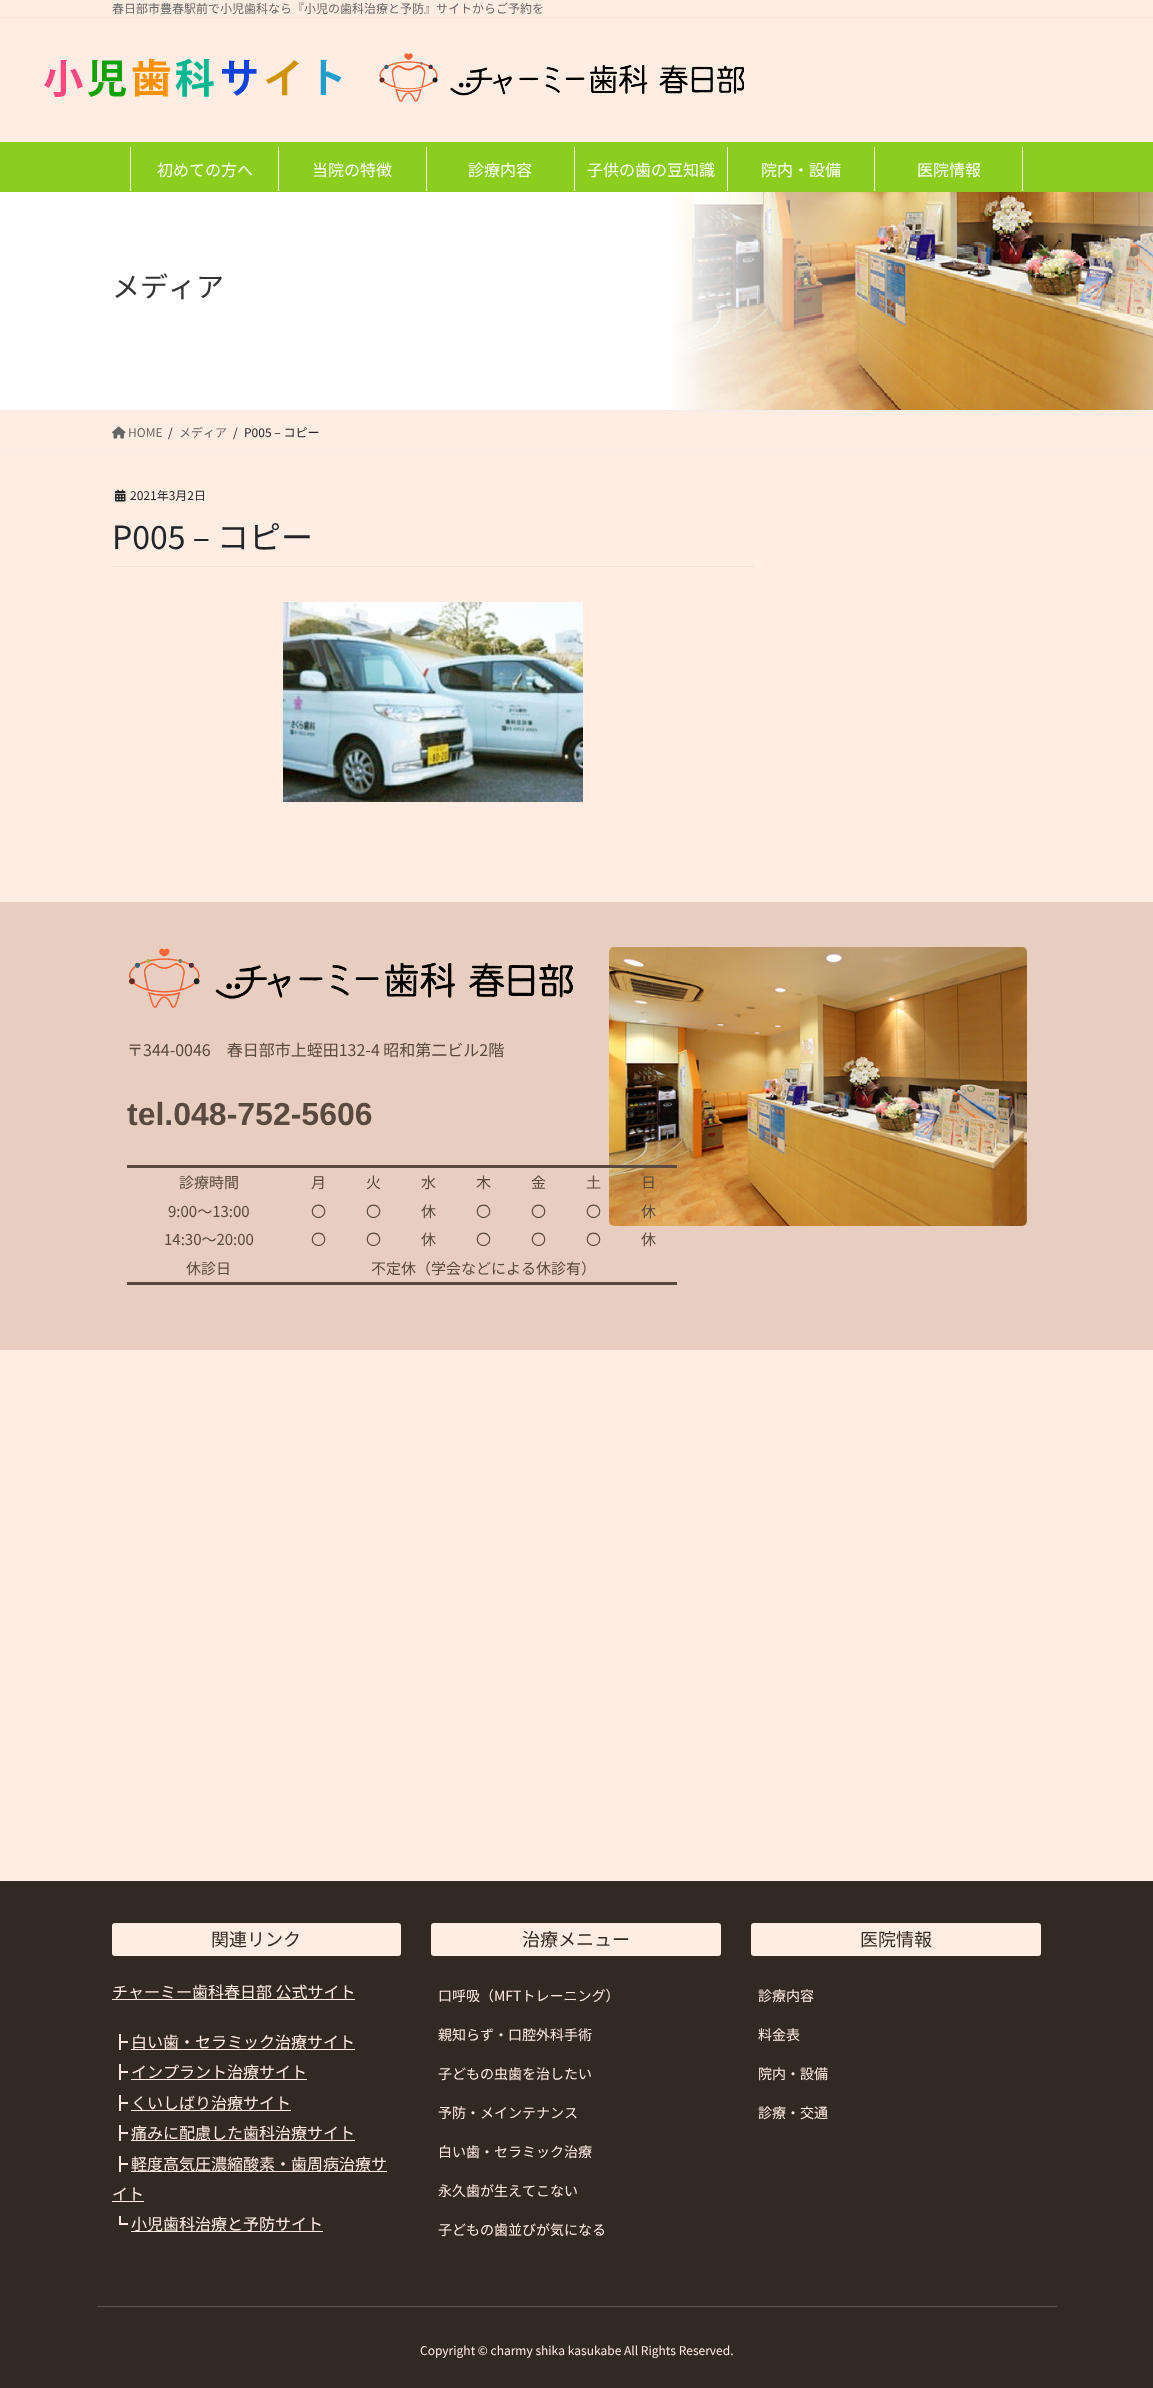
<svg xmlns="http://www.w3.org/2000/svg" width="1153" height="2388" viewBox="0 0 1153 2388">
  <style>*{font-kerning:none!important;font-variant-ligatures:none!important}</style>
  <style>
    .t1 { font: 12px Noto Sans JP; fill: #666; }
    .t2 { font: 16px Noto Sans JP; fill: #fff; }
    .t3 { font: 28px Noto Sans JP; fill: #333; }
    .t4 { font: 12px Noto Sans JP; fill: #212529; }
    .t5 { font: 32px Noto Sans JP; fill: #212529; }
    .t6 { font: 16px Noto Sans JP; fill: #5a493e; }
    .t7 { font: bold 32px Liberation Sans; fill: #5a493e; }
    .t8 { font: 15px Noto Sans JP; fill: #5a493e; }
    .t9 { font: 18px Noto Sans JP; fill: #332923; }
    .t10 { font: 16px Noto Sans JP; fill: #ffede3; }
    .t11 { font: 14px Noto Sans JP; fill: #ffede3; }
    .t12 { font: 12px Noto Sans JP; fill: #ffede3; }
  </style>
  <rect width="100%" height="100%" fill="#ffede3"/>
  <rect x="0" y="17" width="1153" height="1" fill="#f5e4da"/>
  <text x="112" y="13" class="t1">春日部市豊春駅前で小児歯科なら『小児の歯科治療と予防』サイトからご予約を</text>
  <image x="44" y="53" width="700" height="49" href="images/1.png"/>
  <rect x="0" y="142" width="1153" height="50" fill="#8bce1e"/>
  <rect x="130" y="147" width="1" height="44" fill="#fff"/>
  <text x="157" y="176" class="t2">初めての方へ</text>
  <rect x="278" y="147" width="1" height="44" fill="#fff"/>
  <text x="312" y="176" class="t2">当院の特徴</text>
  <rect x="426" y="147" width="1" height="44" fill="#fff"/>
  <text x="468" y="176" class="t2">診療内容</text>
  <rect x="574" y="147" width="1" height="44" fill="#fff"/>
  <text x="587" y="176" class="t2">子供の歯の豆知識</text>
  <rect x="727" y="147" width="1" height="44" fill="#fff"/>
  <text x="761" y="176" class="t2">院内・設備</text>
  <rect x="1022" y="147" width="1" height="44" fill="#fff"/>
  <rect x="874" y="147" width="1" height="44" fill="#fff"/>
  <text x="917" y="176" class="t2">医院情報</text>
  <image x="0" y="192" width="1153" height="218" href="images/2.png"/>
  <rect x="0" y="410" width="1153" height="1" fill="#eee"/>
  <text x="112" y="297" class="t3">メディア</text>
  <rect x="0" y="450" width="1153" height="1" fill="#f3f3f3"/>
  <image x="112" y="426" width="14" height="13" href="images/3.png"/>
  <text x="128" y="437" class="t1">HOME</text>
  <text x="168" y="437" class="t4">/</text>
  <text x="179" y="437" class="t1">メディア</text>
  <text x="233" y="437" class="t4">/</text>
  <text x="244" y="437" class="t4">P005 – コピー</text>
  <rect x="112" y="566" width="642" height="1" fill="#f2e1d8"/>
  <image x="115" y="489" width="11" height="13" href="images/4.png"/>
  <text x="130" y="500" class="t4">2021年3月2日</text>
  <text x="112" y="549" class="t5">P005 – コピー</text>
  <image x="283" y="602" width="300" height="200" href="images/5.png"/>
  <rect x="0" y="902" width="1153" height="448" fill="#e8cec0"/>
  <image x="129" y="948" width="445" height="60" href="images/6.png"/>
  <text x="127" y="1056" class="t6">〒344-0046　春日部市上蛭田132-4 昭和第二ビル2階</text>
  <text x="127" y="1125" class="t7">tel.048-752-5606</text>
  <image x="609" y="947" width="418" height="279" href="images/7.png"/>
  <rect x="127" y="1165" width="550" height="3" fill="#5a493e"/>
  <rect x="127" y="1282" width="550" height="3" fill="#5a493e"/>
  <text x="179" y="1188" class="t8">診療時間</text>
  <text x="311" y="1188" class="t8">月</text>
  <text x="366" y="1188" class="t8">火</text>
  <text x="421" y="1188" class="t8">水</text>
  <text x="476" y="1188" class="t8">木</text>
  <text x="531" y="1188" class="t8">金</text>
  <text x="586" y="1188" class="t8">土</text>
  <text x="641" y="1188" class="t8">日</text>
  <text x="168" y="1217" class="t8">9:00～13:00</text>
  <text x="311" y="1217" class="t8">〇</text>
  <text x="366" y="1217" class="t8">〇</text>
  <text x="421" y="1217" class="t8">休</text>
  <text x="476" y="1217" class="t8">〇</text>
  <text x="531" y="1217" class="t8">〇</text>
  <text x="586" y="1217" class="t8">〇</text>
  <text x="641" y="1217" class="t8">休</text>
  <text x="164" y="1245" class="t8">14:30～20:00</text>
  <text x="311" y="1245" class="t8">〇</text>
  <text x="366" y="1245" class="t8">〇</text>
  <text x="421" y="1245" class="t8">休</text>
  <text x="476" y="1245" class="t8">〇</text>
  <text x="531" y="1245" class="t8">〇</text>
  <text x="586" y="1245" class="t8">〇</text>
  <text x="641" y="1245" class="t8">休</text>
  <text x="186" y="1274" class="t8">休診日</text>
  <text x="371" y="1274" class="t8">不定休（学会などによる休診有）</text>
  <rect x="0" y="1881" width="1153" height="507" fill="#332923"/>
  <rect x="112" y="1923" width="289" height="33" rx="3" fill="#ffede3"/>
  <rect x="114" y="1955" width="286" height="1" fill="#ffffff33"/>
  <text x="211" y="1946" class="t9">関連リンク</text>
  <rect x="112" y="1999" width="243" height="1" fill="#ffede3"/>
  <text x="112" y="1998" class="t10">チャーミー歯科春日部 公式サイト</text>
  <text x="112" y="2048" class="t10">┣</text>
  <rect x="131" y="2049" width="224" height="1" fill="#ffede3"/>
  <text x="131" y="2048" class="t10">白い歯・セラミック治療サイト</text>
  <text x="112" y="2078" class="t10">┣</text>
  <rect x="131" y="2079" width="176" height="1" fill="#ffede3"/>
  <text x="131" y="2078" class="t10">インプラント治療サイト</text>
  <text x="112" y="2109" class="t10">┣</text>
  <rect x="131" y="2110" width="160" height="1" fill="#ffede3"/>
  <text x="131" y="2109" class="t10">くいしばり治療サイト</text>
  <text x="112" y="2139" class="t10">┣</text>
  <rect x="131" y="2140" width="224" height="1" fill="#ffede3"/>
  <text x="131" y="2139" class="t10">痛みに配慮した歯科治療サイト</text>
  <text x="112" y="2170" class="t10">┣</text>
  <rect x="131" y="2171" width="256" height="1" fill="#ffede3"/>
  <text x="131" y="2170" class="t10">軽度高気圧濃縮酸素・歯周病治療サ</text>
  <text x="112" y="2200" class="t10">イト</text>
  <rect x="112" y="2201" width="32" height="1" fill="#ffede3"/>
  <text x="112" y="2230" class="t10">┗</text>
  <rect x="131" y="2231" width="192" height="1" fill="#ffede3"/>
  <text x="131" y="2230" class="t10">小児歯科治療と予防サイト</text>
  <rect x="431" y="1923" width="290" height="33" rx="3" fill="#ffede3"/>
  <rect x="433" y="1955" width="287" height="1" fill="#ffffff33"/>
  <text x="522" y="1946" class="t9">治療メニュー</text>
  <text x="438" y="2001" class="t11">口呼吸（MFTトレーニング）</text>
  <text x="438" y="2040" class="t11">親知らず・口腔外科手術</text>
  <text x="438" y="2079" class="t11">子どもの虫歯を治したい</text>
  <text x="438" y="2118" class="t11">予防・メインテナンス</text>
  <text x="438" y="2157" class="t11">白い歯・セラミック治療</text>
  <text x="438" y="2196" class="t11">永久歯が生えてこない</text>
  <text x="438" y="2235" class="t11">子どもの歯並びが気になる</text>
  <rect x="751" y="1923" width="290" height="33" rx="3" fill="#ffede3"/>
  <rect x="753" y="1955" width="287" height="1" fill="#ffffff33"/>
  <text x="860" y="1946" class="t9">医院情報</text>
  <text x="758" y="2001" class="t11">診療内容</text>
  <text x="758" y="2040" class="t11">料金表</text>
  <text x="758" y="2079" class="t11">院内・設備</text>
  <text x="758" y="2118" class="t11">診療・交通</text>
  <rect x="97" y="2306" width="960" height="1" fill="#5c544f"/>
  <text x="420" y="2355" class="t12">Copyright © charmy shika kasukabe All Rights Reserved.</text>
</svg>
